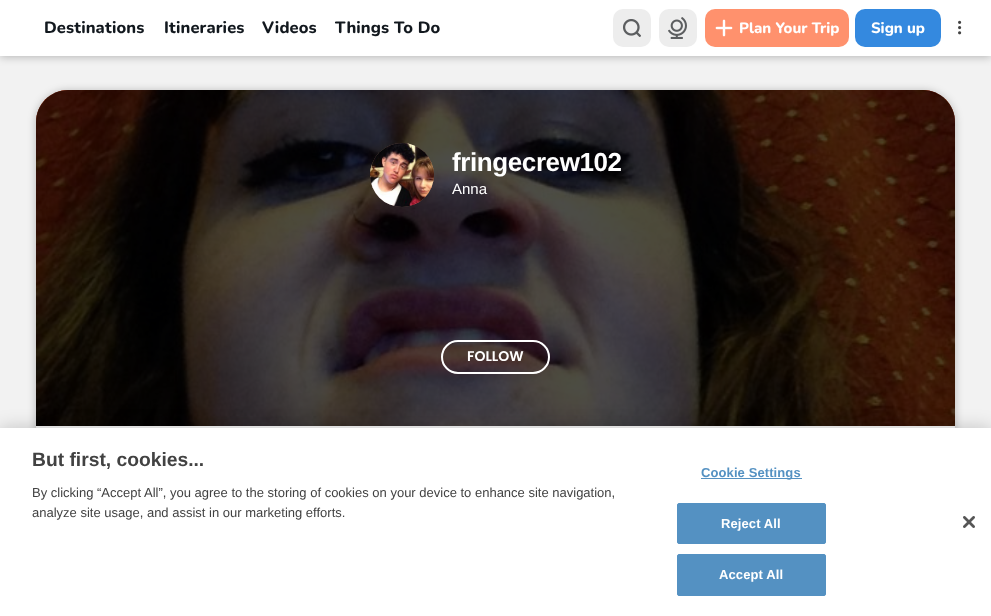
<svg xmlns="http://www.w3.org/2000/svg" width="991" height="616" viewBox="0 0 991 616">
  <style>
    .t1 { font: 800 16.5px Nunito; letter-spacing: 0.1px; fill: #12181e; }
    .t2 { font: 800 15px Nunito; fill: #fff; }
    .t3 { font: bold 26px Liberation Sans; letter-spacing: -0.4px; fill: #fff; }
    .t4 { font: 15px Liberation Sans; fill: #fff; }
    .t5 { font: 600 14px Poppins; fill: #fff; }
    .t6 { font: bold 19.25px Liberation Sans; fill: #424242; }
    .t7 { font: 13px Liberation Sans; fill: #424242; }
    .t8 { font: bold 13px Liberation Sans; letter-spacing: 0.1px; fill: #5491c2; }
    .t9 { font: bold 13px Liberation Sans; letter-spacing: 0.1px; fill: #fff; }
  </style>
  <rect width="100%" height="100%" fill="#f2f2f2"/>
  <rect x="0" y="1" width="991" height="56" fill="#00000040" filter="blur(4px)"/>
  <rect x="0" y="0" width="991" height="56" fill="#fff"/>
  <text x="44" y="33" class="t1">Destinations</text>
  <text x="164" y="33" class="t1">Itineraries</text>
  <text x="262" y="33" class="t1">Videos</text>
  <text x="335" y="33" class="t1">Things To Do</text>
  <rect x="613" y="9" width="38" height="38" rx="10" fill="#ededed"/>
  <image x="623" y="19" width="18" height="18" href="images/1.png"/>
  <rect x="659" y="9" width="38" height="38" rx="10" fill="#ededed"/>
  <image x="668" y="17" width="19" height="22" href="images/2.png"/>
  <rect x="705" y="9" width="144" height="38" rx="10" fill="#ff916d"/>
  <image x="715" y="19" width="18" height="18" href="images/3.png"/>
  <text x="739" y="33" class="t2">Plan Your Trip</text>
  <rect x="855" y="9" width="86" height="38" rx="10" fill="#3489df"/>
  <text x="871" y="33" class="t2">Sign up</text>
  <image x="958" y="20" width="4" height="15" href="images/4.png"/>
  <rect x="36" y="91" width="919" height="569" rx="32" fill="#00000040" filter="blur(4px)"/>
  <path d="M68 90H923C940.5 90 955 104.5 955 122V616H36V122C36 104.5 50.5 90 68 90Z" fill="#f6f6f6"/>
  <path d="M68 90H923C940.5 90 955 104.5 955 122V426H36V122C36 104.5 50.5 90 68 90Z" fill="#8e675a"/>
  <image x="36" y="90" width="919" height="336" href="images/5.png"/>
  <path d="M68 90H923C940.5 90 955 104.5 955 122V426H36V122C36 104.5 50.5 90 68 90Z" fill="#000000b3"/>
  <circle cx="402" cy="175" r="32" fill="#836358"/>
  <image x="370" y="143" width="64" height="64" href="images/6.png"/>
  <text x="452" y="171" class="t3">fringecrew102</text>
  <text x="452" y="194" class="t4">Anna</text>
  <rect x="442" y="341" width="107" height="32" rx="16" fill="none" stroke="#fff" stroke-width="2"/>
  <text x="467" y="361" class="t5">FOLLOW</text>
  <rect x="0" y="428" width="991" height="188" fill="#00000033" filter="blur(9px)"/>
  <rect x="0" y="428" width="991" height="188" fill="#fff"/>
  <text x="32" y="466" class="t6">But first, cookies...</text>
  <text x="32" y="497" class="t7">By clicking “Accept All”, you agree to the storing of cookies on your device to enhance site navigation,</text>
  <text x="32" y="517" class="t7">analyze site usage, and assist in our marketing efforts.</text>
  <rect x="701" y="478" width="101" height="1" fill="#5491c2"/>
  <text x="701" y="477" class="t8">Cookie Settings</text>
  <rect x="677.5" y="503.5" width="148" height="40" rx="1.5" fill="#5491c2" stroke="#5491c2"/>
  <text x="721" y="528" class="t9">Reject All</text>
  <rect x="677.5" y="554.5" width="148" height="41" rx="1.5" fill="#5491c2" stroke="#5491c2"/>
  <text x="719" y="579" class="t9">Accept All</text>
  <image x="963" y="516" width="12" height="12" href="images/7.png"/>
</svg>
